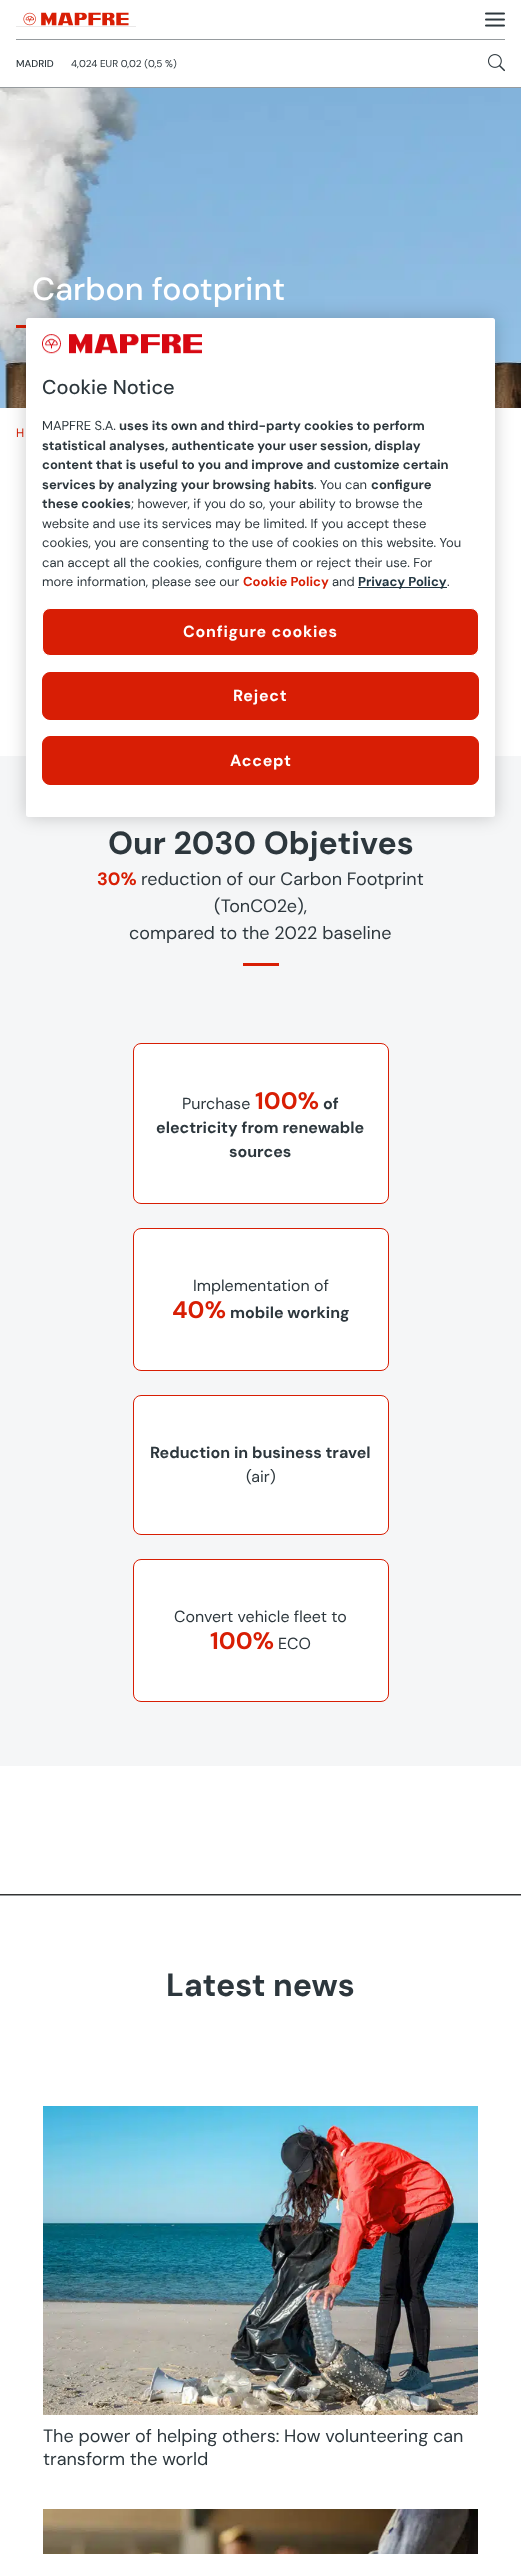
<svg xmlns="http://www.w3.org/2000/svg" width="521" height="2554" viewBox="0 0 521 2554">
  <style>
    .t1 { font: 500 10px DM Sans; fill: #2d373d; }
    .t2 { font: 10px DM Sans; fill: #2d373d; }
    .t3 { font: 500 32px DM Sans; fill: #fff; }
    .t4 { font: 12px DM Sans; fill: #d81e04; }
    .t5 { font: bold 32px DM Sans; fill: #2d373d; }
    .t6 { font: bold 18px DM Sans; fill: #d81e04; }
    .t7 { font: 18px DM Sans; fill: #2d373d; }
    .t8 { font: 16px DM Sans; fill: #2d373d; }
    .t9 { font: bold 24px DM Sans; fill: #d81e04; }
    .t10 { font: bold 16px DM Sans; fill: #2d373d; }
    .t11 { font: 500 20px DM Sans; fill: #2d373d; }
    .t12 { font: 13px DM Sans; fill: #2d373d; }
    .t13 { font: bold 13px DM Sans; fill: #2d373d; }
    .t14 { font: bold 13px DM Sans; fill: #d81e04; }
    .t15 { font: bold 13px DM Sans; fill: #233742; }
    .t16 { font: bold 16px DM Sans; letter-spacing: 0.75px; fill: #fff; }
  </style>
  <rect width="100%" height="100%" fill="#fff"/>
  <rect x="0" y="87" width="521" height="1" fill="#969b9e"/>
  <rect x="16" y="39" width="489" height="1" fill="#969b9e"/>
  <rect x="16" y="26" width="120" height="1" fill="#eae9e9"/>
  <image x="23" y="12" width="106" height="14" href="images/1.png"/>
  <text x="16" y="67" class="t1">MADRID</text>
  <text x="71" y="67" class="t2">4,024 EUR 0,02 (</text>
  <text x="148" y="67" class="t2">0,5 %)</text>
  <image x="485" y="12" width="20" height="15" href="images/2.png"/>
  <image x="488" y="54" width="17" height="18" href="images/3.png"/>
  <image x="0" y="88" width="521" height="320" href="images/4.png"/>
  <text x="32" y="300" class="t3">Carbon footprint</text>
  <rect x="16" y="325" width="10" height="3" fill="#d81e04"/>
  <text x="16" y="437" class="t4">H</text>
  <rect x="0" y="756" width="521" height="1010" fill="#f5f6f7"/>
  <text x="108" y="854" class="t5">Our 2030 Objetives</text>
  <text x="97" y="885" class="t6">30%</text>
  <text x="141" y="885" class="t7">reduction of our Carbon Footprint</text>
  <text x="214" y="912" class="t7">(TonCO2e),</text>
  <text x="129" y="939" class="t7">compared to the 2022 baseline</text>
  <rect x="243" y="963" width="36" height="3" fill="#d81e04"/>
  <rect x="133.5" y="1043.5" width="255" height="160" rx="7.5" fill="#fff" stroke="#d81e04"/>
  <text x="182" y="1109" class="t8">Purchase</text>
  <text x="255" y="1109" class="t9">100%</text>
  <text x="323" y="1109" class="t10">of</text>
  <text x="156" y="1133" class="t10">electricity from renewable</text>
  <text x="229" y="1157" class="t10">sources</text>
  <rect x="133.5" y="1228.5" width="255" height="142" rx="7.5" fill="#fff" stroke="#d81e04"/>
  <text x="193" y="1291" class="t8">Implementation of</text>
  <text x="172" y="1318" class="t9">40%</text>
  <text x="230" y="1318" class="t10">mobile working</text>
  <rect x="133.5" y="1395.5" width="255" height="139" rx="7.5" fill="#fff" stroke="#d81e04"/>
  <text x="150" y="1458" class="t10">Reduction in business travel</text>
  <text x="246" y="1482" class="t8">(air)</text>
  <rect x="133.5" y="1559.5" width="255" height="142" rx="7.5" fill="#fff" stroke="#d81e04"/>
  <text x="174" y="1622" class="t8">Convert vehicle fleet to</text>
  <text x="210" y="1649" class="t9">100%</text>
  <text x="278" y="1649" class="t8">ECO</text>
  <rect x="0" y="1894" width="521" height="1" fill="#333"/>
  <rect x="0" y="1895" width="521" height="1" fill="#979b9e"/>
  <text x="166" y="1996" class="t5">Latest news</text>
  <image x="43" y="2106" width="435" height="309" href="images/5.png"/>
  <text x="43" y="2442" class="t7">The power of helping others: How volunteering can</text>
  <text x="43" y="2465" class="t7">transform the world</text>
  <image x="43" y="2509" width="435" height="45" href="images/6.png"/>
  <rect x="26" y="318" width="469" height="499" rx="2.5" fill="#00000033" filter="blur(9px)"/>
  <rect x="26" y="318" width="469" height="499" rx="2.5" fill="#fff"/>
  <image x="42" y="334" width="160" height="20" href="images/7.png"/>
  <text x="42" y="394" class="t11">Cookie Notice</text>
  <text x="42" y="430" class="t12">MAPFRE S.A.</text>
  <text x="119" y="430" class="t13">uses its own and third-party cookies to perform</text>
  <text x="42" y="450" class="t13">statistical analyses, authenticate your user session, display</text>
  <text x="42" y="469" class="t13">content that is useful to you and improve and customize certain</text>
  <text x="42" y="489" class="t13">services by analyzing your browsing habits</text>
  <text x="314" y="489" class="t12">. You can</text>
  <text x="371" y="489" class="t13">configure</text>
  <text x="42" y="508" class="t13">these cookies</text>
  <text x="131" y="508" class="t12">; however, if you do so, your ability to browse the</text>
  <text x="42" y="528" class="t12">website and use its services may be limited. If you accept these</text>
  <text x="42" y="547" class="t12">cookies, you are consenting to the use of cookies on this website. You</text>
  <text x="42" y="567" class="t12">can accept all the cookies, configure them or reject their use. For</text>
  <text x="42" y="586" class="t12">more information, please see our</text>
  <text x="243" y="586" class="t14">Cookie Policy</text>
  <text x="332" y="586" class="t12">and</text>
  <rect x="358" y="587" width="89" height="1" fill="#233742"/>
  <text x="358" y="586" class="t15">Privacy Policy</text>
  <text x="447" y="586" class="t12">.</text>
  <rect x="42.5" y="608.5" width="436" height="47" rx="7.5" fill="#d81e05" stroke="#fff"/>
  <text x="183" y="637" class="t16">Configure cookies</text>
  <rect x="42.5" y="672.5" width="436" height="47" rx="7.5" fill="#d81e05" stroke="#d81e05"/>
  <text x="233" y="701" class="t16">Reject</text>
  <rect x="42.5" y="736.5" width="436" height="48" rx="7.5" fill="#d81e05" stroke="#d81e05"/>
  <text x="230" y="766" class="t16">Accept</text>
</svg>
